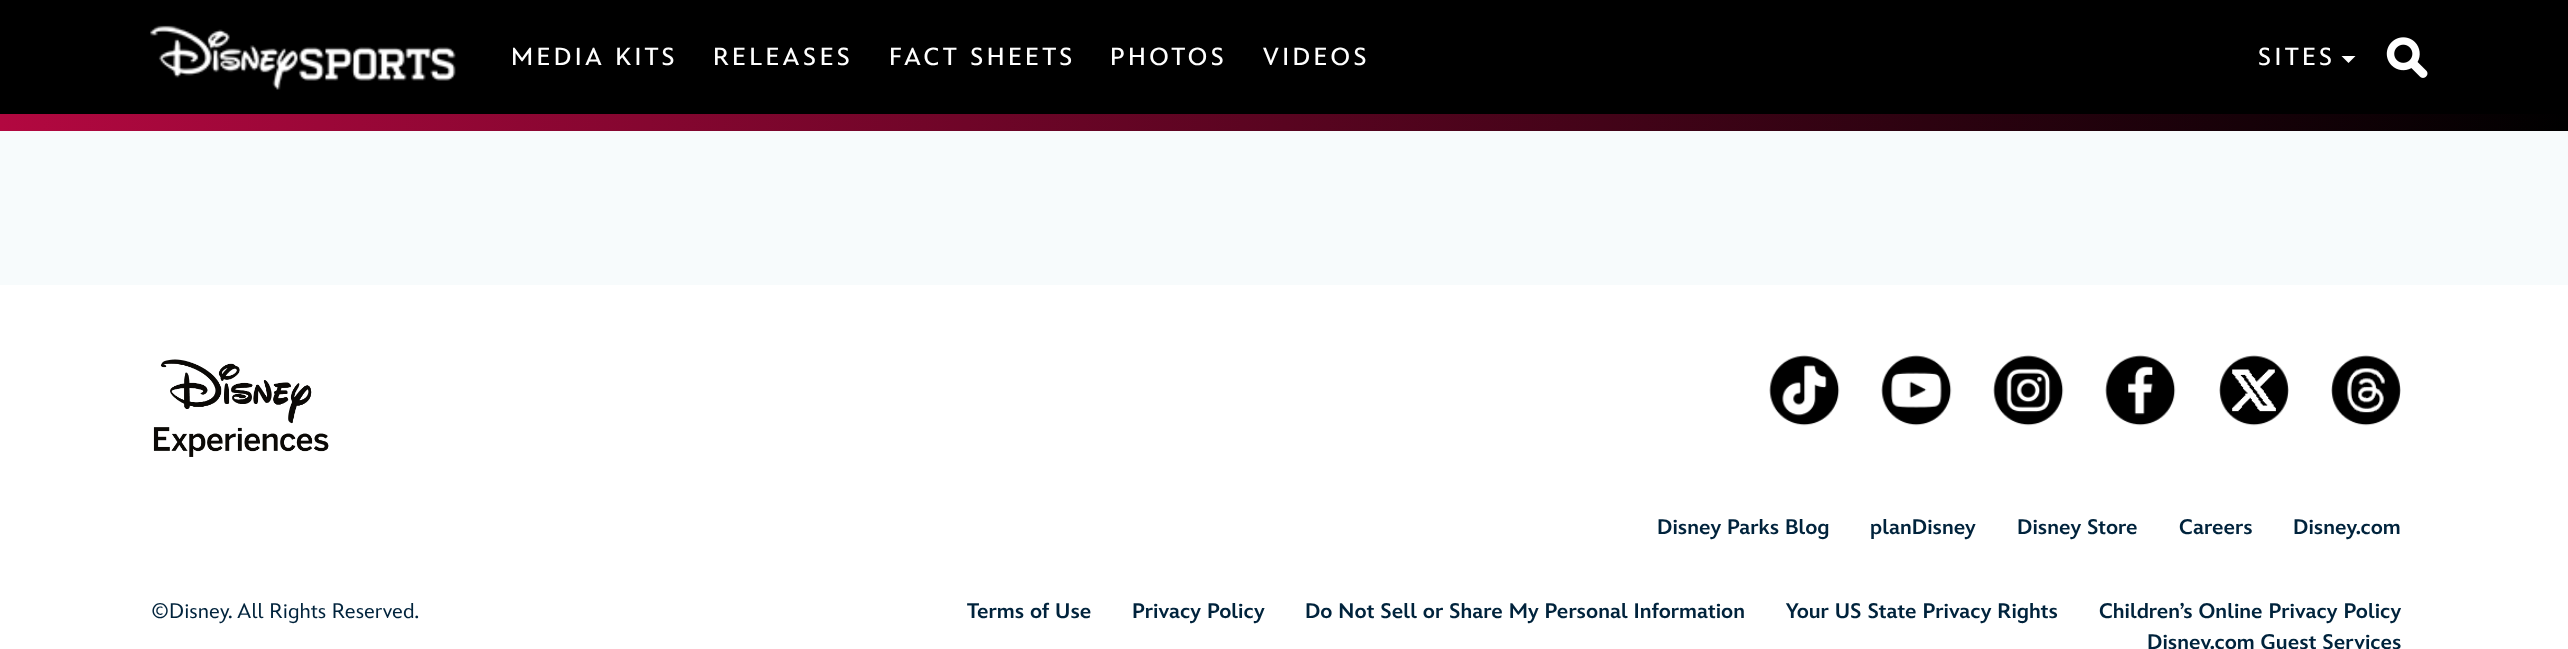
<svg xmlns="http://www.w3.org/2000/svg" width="2568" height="649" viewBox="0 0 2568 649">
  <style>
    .t1 { font: 500 24.5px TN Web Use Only; letter-spacing: 3.5px; fill: #fff; }
    .t2 { font: 600 21px TN Web Use Only; fill: #00233c; }
    .t3 { font: 21px TN Web Use Only; fill: #00233c; }
  </style>
  <defs>
    <linearGradient id="g1" gradientUnits="userSpaceOnUse" x1="0" y1="123" x2="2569" y2="122"><stop offset="0" stop-color="#b20840"/><stop offset="1" stop-color="#000"/></linearGradient>
  </defs>
  <rect width="100%" height="100%" fill="#f7fbfc"/>
  <rect x="0" y="0" width="2568" height="114" fill="#000"/>
  <image x="150" y="25" width="306" height="65" href="images/1.png"/>
  <text x="511" y="65" class="t1">MEDIA KITS</text>
  <text x="713" y="65" class="t1">RELEASES</text>
  <text x="889" y="65" class="t1">FACT SHEETS</text>
  <text x="1110" y="65" class="t1">PHOTOS</text>
  <text x="1263" y="65" class="t1">VIDEOS</text>
  <text x="2258" y="65" class="t1">SITES</text>
  <path d="M2341.5 56H2355.5L2348.5 63Z" fill="#fff"/>
  <image x="2386" y="37" width="42" height="41" href="images/2.png"/>
  <rect x="0" y="114" width="2568" height="17" fill="url(#g1)"/>
  <rect x="0" y="285" width="2568" height="364" fill="#fff"/>
  <image x="153" y="359" width="176" height="98" href="images/3.png"/>
  <image x="1769" y="355" width="71" height="71" href="images/4.png"/>
  <image x="1881" y="355" width="71" height="71" href="images/5.png"/>
  <image x="1993" y="355" width="71" height="71" href="images/6.png"/>
  <image x="2105" y="355" width="71" height="71" href="images/7.png"/>
  <image x="2219" y="355" width="70" height="71" href="images/8.png"/>
  <image x="2331" y="355" width="70" height="71" href="images/9.png"/>
  <text x="1657" y="534" class="t2">Disney Parks Blog</text>
  <text x="1870" y="534" class="t2">planDisney</text>
  <text x="2017" y="534" class="t2">Disney Store</text>
  <text x="2179" y="534" class="t2">Careers</text>
  <text x="2293" y="534" class="t2">Disney.com</text>
  <text x="151" y="618" class="t3">©Disney. All Rights Reserved.</text>
  <text x="967" y="618" class="t2">Terms of Use</text>
  <text x="1132" y="618" class="t2">Privacy Policy</text>
  <text x="1305" y="618" class="t2">Do Not Sell or Share My Personal Information</text>
  <text x="1786" y="618" class="t2">Your US State Privacy Rights</text>
  <text x="2099" y="618" class="t2">Children’s Online Privacy Policy</text>
  <text x="2147" y="649" class="t2">Disney.com Guest Services</text>
</svg>
